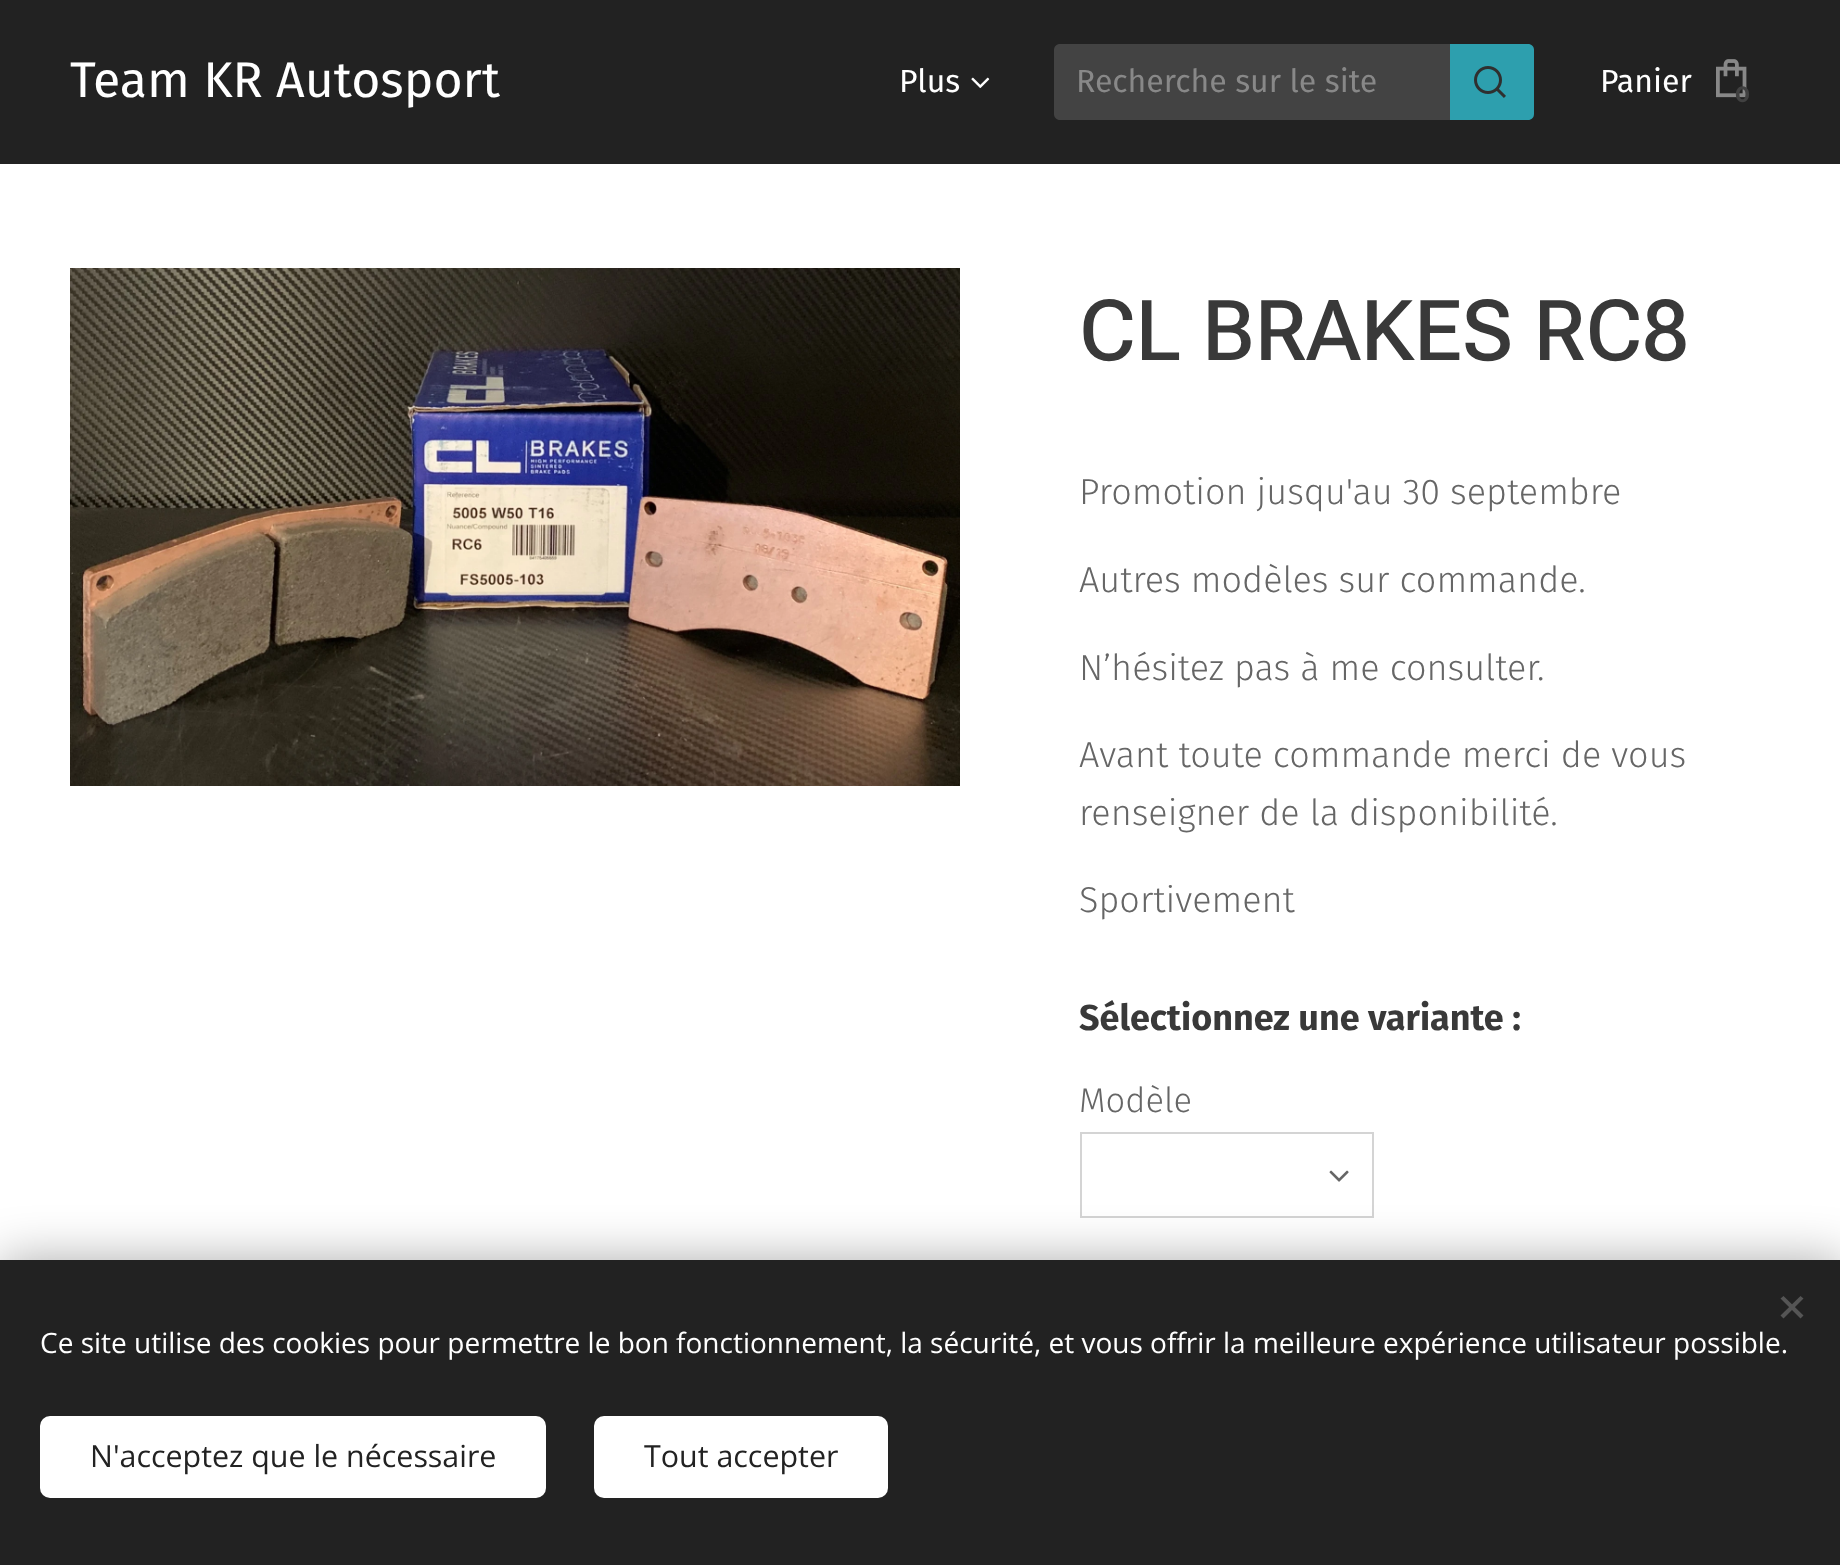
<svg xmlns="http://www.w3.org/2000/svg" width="1840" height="1565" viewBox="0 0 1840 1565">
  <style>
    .t1 { font: 50px Fira Sans; fill: #fff; }
    .t2 { font: 32px Fira Sans; fill: #fff; }
    .t3 { font: 32px Fira Sans; fill: #888; }
    .t4 { font: bold 22px Montserrat; fill: #414141; }
    .t5 { font: 500 84px Roboto Flex; fill: #393939; }
    .t6 { font: 300 36px Fira Sans; fill: #666; }
    .t7 { font: bold 36px Fira Sans; fill: #393939; }
    .t8 { font: 300 34.5px Fira Sans; fill: #666; }
    .t9 { font: 28px Open Sans; fill: #fff; }
    .t10 { font: 30.4px Open Sans; fill: #222; }
  </style>
  <rect width="100%" height="100%" fill="#fff"/>
  <rect x="0" y="0" width="1840" height="164" fill="#222"/>
  <text x="70" y="97" class="t1">Team KR Autosport</text>
  <text x="899" y="92" class="t2">Plus</text>
  <image x="971" y="77" width="19" height="11" href="images/1.png"/>
  <path d="M1060 44H1450V120H1060C1056.5 120 1054 117.5 1054 114V50C1054 46.5 1056.5 44 1060 44Z" fill="#434343"/>
  <text x="1076" y="92" class="t3">Recherche sur le site</text>
  <path d="M1450 44H1528C1531.5 44 1534 46.5 1534 50V114C1534 117.5 1531.5 120 1528 120H1450Z" fill="#2d9fae"/>
  <image x="1474" y="66" width="32" height="32" href="images/2.png"/>
  <text x="1600" y="92" class="t2">Panier</text>
  <image x="1716" y="59" width="31" height="39" href="images/3.png"/>
  <text x="1735" y="102" class="t4">0</text>
  <image x="70" y="268" width="890" height="518" href="images/4.png"/>
  <text x="1079" y="360" class="t5">CL BRAKES RC8</text>
  <text x="1079" y="504" class="t6">Promotion jusqu'au 30 septembre</text>
  <text x="1079" y="592" class="t6">Autres modèles sur commande.</text>
  <text x="1079" y="680" class="t6">N’hésitez pas à me consulter.</text>
  <text x="1079" y="767" class="t6">Avant toute commande merci de vous</text>
  <text x="1079" y="825" class="t6">renseigner de la disponibilité.</text>
  <text x="1079" y="912" class="t6">Sportivement</text>
  <text x="1079" y="1030" class="t7">Sélectionnez une variante :</text>
  <text x="1079" y="1112" class="t8">Modèle</text>
  <rect x="1081" y="1133" width="292" height="84" fill="none" stroke="#d4d4d4" stroke-width="2"/>
  <image x="1329" y="1170" width="20" height="12" href="images/5.png"/>
  <rect x="0" y="1260" width="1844" height="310" fill="#00000054" filter="blur(25px)"/>
  <rect x="0" y="1260" width="1840" height="305" fill="#222"/>
  <path d="M1780.5 1315.5L1800.5 1296L1803.5 1298.5L1783.5 1318.5Z" fill="#555"/>
  <path d="M1783.5 1296L1803.5 1315.5L1800.5 1318.5L1780.5 1298.5Z" fill="#555"/>
  <text x="40" y="1353" class="t9">Ce site utilise des cookies pour permettre le bon fonctionnement, la sécurité, et vous offrir la meilleure expérience utilisateur possible.</text>
  <rect x="40" y="1416" width="506" height="82" rx="10" fill="#fff"/>
  <text x="90" y="1467" class="t10">N'acceptez que le nécessaire</text>
  <rect x="594" y="1416" width="294" height="82" rx="10" fill="#fff"/>
  <text x="644" y="1467" class="t10">Tout accepter</text>
</svg>
